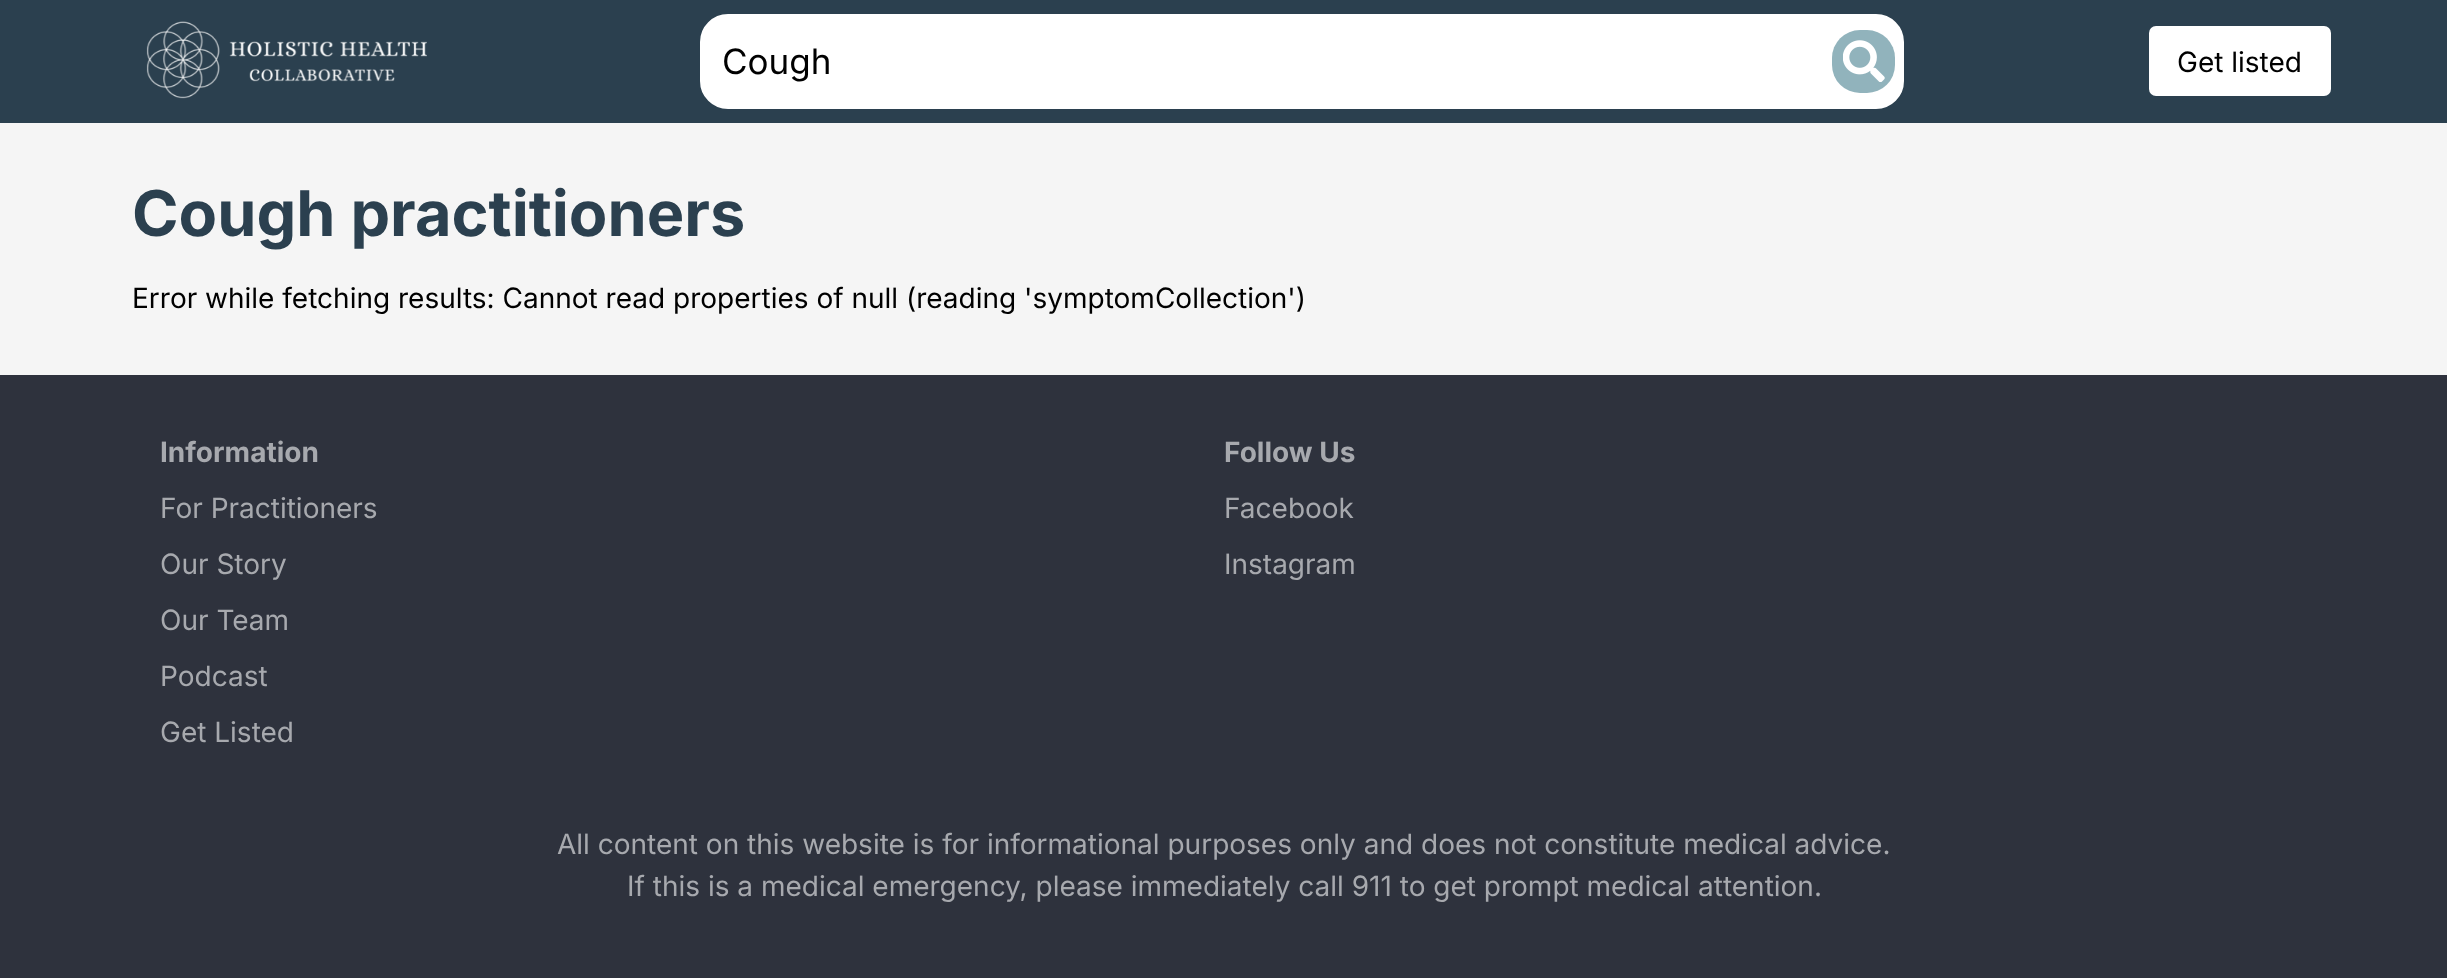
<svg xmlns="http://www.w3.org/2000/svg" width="2447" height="978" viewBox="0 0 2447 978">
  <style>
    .t1 { font: 35px Inter; fill: #000; }
    .t2 { font: 28px Inter; fill: #000; }
    .t3 { font: bold 63px Inter; fill: #2b404f; }
    .t4 { font: bold 28px Inter; fill: #a7a9ae; }
    .t5 { font: 28px Inter; fill: #a7a9ae; }
  </style>
  <rect width="100%" height="100%" fill="#f5f5f5"/>
  <rect x="0" y="0" width="2447" height="123" fill="#2b404f"/>
  <image x="146" y="21" width="281" height="78" href="images/1.png"/>
  <rect x="701" y="15" width="1202" height="93" rx="27" fill="#fff" stroke="#fff" stroke-width="2"/>
  <text x="722" y="74" class="t1">Cough</text>
  <rect x="1832" y="30" width="63" height="63" rx="28" fill="#91b3bc"/>
  <image x="1843" y="40" width="42" height="42" href="images/2.png"/>
  <rect x="2149" y="26" width="182" height="70" rx="7" fill="#fff"/>
  <text x="2177" y="72" class="t2">Get listed</text>
  <text x="132" y="236" class="t3">Cough practitioners</text>
  <text x="132" y="308" class="t2">Error while fetching results: Cannot read properties of null (reading 'symptomCollection')</text>
  <rect x="0" y="375" width="2447" height="603" fill="#2e323d"/>
  <text x="160" y="462" class="t4">Information</text>
  <text x="160" y="518" class="t5">For Practitioners</text>
  <text x="160" y="574" class="t5">Our Story</text>
  <text x="160" y="630" class="t5">Our Team</text>
  <text x="160" y="686" class="t5">Podcast</text>
  <text x="160" y="742" class="t5">Get Listed</text>
  <text x="1224" y="462" class="t4">Follow Us</text>
  <text x="1224" y="518" class="t5">Facebook</text>
  <text x="1224" y="574" class="t5">Instagram</text>
  <text x="557" y="854" class="t5">All content on this website is for informational purposes only and does not constitute medical advice.</text>
  <text x="627" y="896" class="t5">If this is a medical emergency, please immediately call 911 to get prompt medical attention.</text>
</svg>
